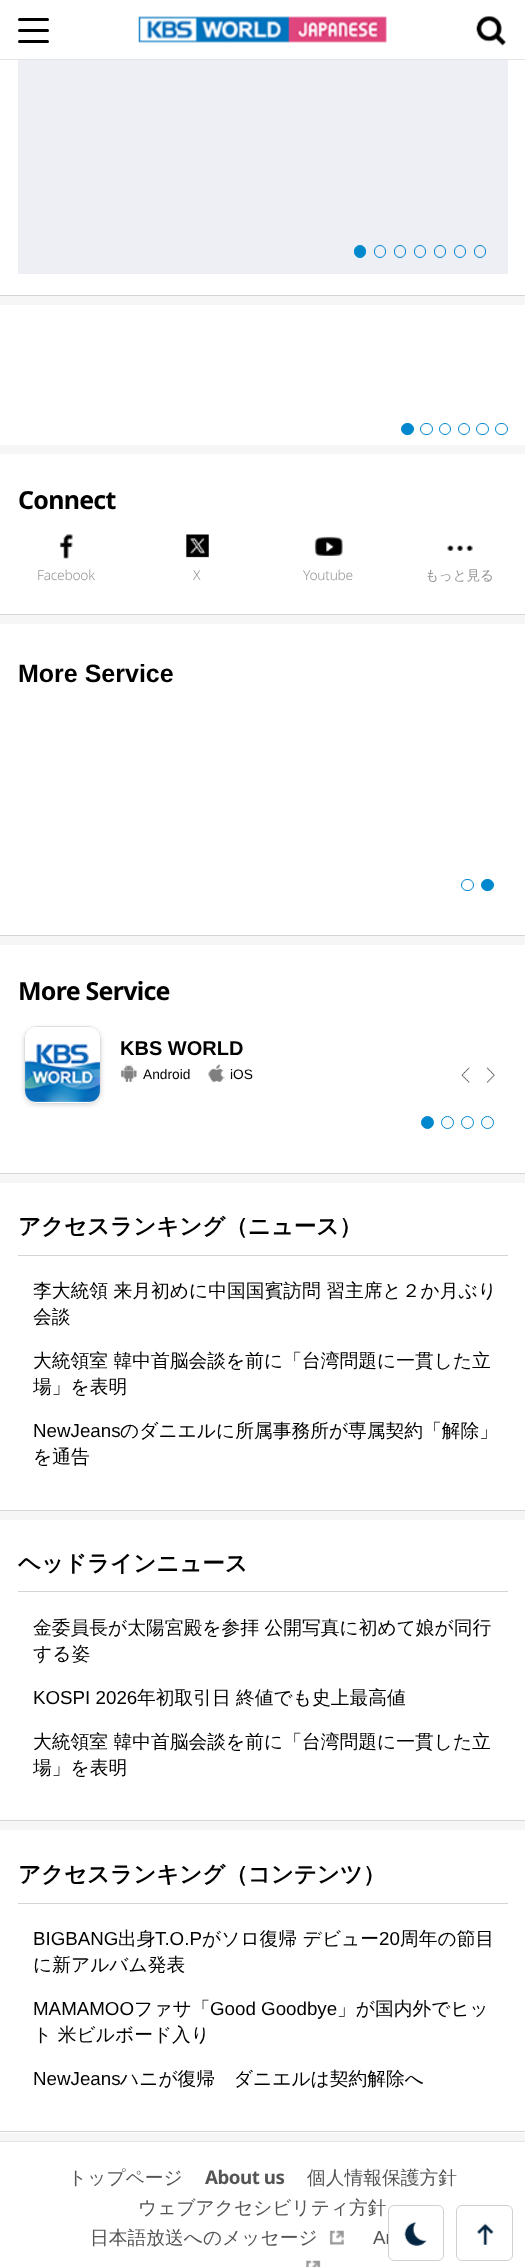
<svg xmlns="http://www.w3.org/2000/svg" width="525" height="2267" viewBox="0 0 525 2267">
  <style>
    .t1 { font: 18.75px Liberation Sans; fill: #555; }
    .t2 { font: bold 25px Noto Sans; letter-spacing: -0.75px; fill: #000; }
    .t3 { font: 300 13.75px Noto Sans; letter-spacing: -0.25px; fill: #949699; }
    .t4 { font: 500 13.75px WenQuanYi Zen Hei; letter-spacing: -0.25px; fill: #949699; }
    .t5 { font: bold 25px Liberation Sans; fill: #000; }
    .t6 { font: bold 20px Liberation Sans; fill: #000; }
    .t7 { font: 13.75px Liberation Sans; fill: #000; }
    .t8 { font: bold 22.5px WenQuanYi Zen Hei; fill: #000; }
    .t9 { font: 500 18.75px WenQuanYi Zen Hei; fill: #000; }
    .t10 { font: 18.75px Liberation Sans; fill: #000; }
    .t11 { font: 500 18.75px WenQuanYi Zen Hei; fill: #555; }
    .t12 { font: bold 18.75px Noto Sans; letter-spacing: -0.5px; fill: #555; }
  </style>
  <defs>
    <clipPath id="clip1"><path d="M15 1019H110V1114H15ZM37 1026H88C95 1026 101 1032 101 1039V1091C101 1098 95 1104 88 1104H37C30 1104 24 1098 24 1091V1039C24 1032 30 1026 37 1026Z" clip-rule="evenodd"/></clipPath>
  </defs>
  <rect width="100%" height="100%" fill="#fff"/>
  <image x="138" y="16" width="249" height="27" href="images/1.png"/>
  <image x="476" y="16" width="30" height="30" href="images/2.png"/>
  <rect x="0" y="59" width="525" height="1" fill="#e5e5e5"/>
  <rect x="18" y="18" width="31" height="3" rx="1.5" fill="#000"/>
  <rect x="18" y="29" width="31" height="3" rx="1.5" fill="#000"/>
  <rect x="18" y="40" width="31" height="3" rx="1.5" fill="#000"/>
  <text x="373" y="2244" class="t1">Ar</text>
  <rect x="388.5" y="2205.5" width="55" height="55" rx="5.5" fill="#fff" stroke="#ccd1d6"/>
  <image x="404" y="2221" width="23" height="25" href="images/3.png"/>
  <rect x="456.5" y="2205.5" width="56" height="55" rx="5.5" fill="none" stroke="#ccd1d6"/>
  <image x="477" y="2223" width="17" height="22" href="images/4.png"/>
  <rect x="0" y="296" width="525" height="1845" fill="#f6f6f6"/>
  <rect x="0" y="295" width="525" height="1" fill="#d5d5d5"/>
  <rect x="18" y="60" width="490" height="214" fill="#eeeff4"/>
  <rect x="354.5" y="245.5" width="11" height="12" rx="5.5" fill="#0088cf" stroke="#0088cf"/>
  <rect x="374.5" y="245.5" width="11" height="12" rx="5.5" fill="none" stroke="#0088cf"/>
  <rect x="394.5" y="245.5" width="11" height="12" rx="5.5" fill="none" stroke="#0088cf"/>
  <rect x="414.5" y="245.5" width="11" height="12" rx="5.5" fill="none" stroke="#0088cf"/>
  <rect x="434.5" y="245.5" width="11" height="12" rx="5.5" fill="none" stroke="#0088cf"/>
  <rect x="454.5" y="245.5" width="11" height="12" rx="5.5" fill="none" stroke="#0088cf"/>
  <rect x="474.5" y="245.5" width="11" height="12" rx="5.5" fill="none" stroke="#0088cf"/>
  <rect x="0" y="305" width="525" height="140" fill="#fff"/>
  <rect x="401.5" y="423.5" width="12" height="11" rx="5.5" fill="#0088cf" stroke="#0088cf"/>
  <rect x="420.5" y="423.5" width="12" height="11" rx="5.5" fill="none" stroke="#0088cf"/>
  <circle cx="445" cy="429" r="5.5" fill="none" stroke="#0088cf"/>
  <circle cx="464" cy="429" r="5.5" fill="none" stroke="#0088cf"/>
  <rect x="476.5" y="423.5" width="12" height="11" rx="5.5" fill="none" stroke="#0088cf"/>
  <rect x="495.5" y="423.5" width="12" height="11" rx="5.5" fill="none" stroke="#0088cf"/>
  <rect x="0" y="454" width="525" height="160" fill="#fff"/>
  <rect x="0" y="614" width="525" height="1" fill="#d5d5d5"/>
  <text x="18" y="509" class="t2">Connect</text>
  <image x="59" y="534" width="14" height="25" href="images/5.png"/>
  <text x="37" y="580" class="t3">Facebook</text>
  <image x="186" y="534" width="23" height="24" href="images/6.png"/>
  <text x="193" y="580" class="t3">X</text>
  <image x="314" y="536" width="29" height="20" href="images/7.png"/>
  <text x="303" y="580" class="t3">Youtube</text>
  <image x="447" y="545" width="26" height="6" href="images/8.png"/>
  <text x="425" y="580" class="t4">もっと見る</text>
  <rect x="0" y="624" width="525" height="311" fill="#fff"/>
  <rect x="0" y="935" width="525" height="1" fill="#d5d5d5"/>
  <text x="18" y="682" class="t5">More Service</text>
  <rect x="461.5" y="879.5" width="12" height="11" rx="5.5" fill="none" stroke="#0088cf"/>
  <rect x="481.5" y="879.5" width="12" height="11" rx="5.5" fill="#0088cf" stroke="#0088cf"/>
  <rect x="0" y="945" width="525" height="228" fill="#fff"/>
  <rect x="0" y="1173" width="525" height="1" fill="#d5d5d5"/>
  <text x="18" y="1000" class="t2">More Service</text>
  <g clip-path="url(#clip1)">
    <rect x="24" y="1028" width="77" height="77" rx="13" fill="#00000026" filter="blur(2.5px)"/>
  </g>
  <rect x="24.5" y="1026.5" width="76" height="77" rx="12.5" fill="none" stroke="#ddd"/>
  <image x="25" y="1027" width="75" height="75" href="images/9.png"/>
  <text x="120" y="1055" class="t6">KBS WORLD</text>
  <image x="120" y="1064" width="17" height="18" href="images/10.png"/>
  <text x="143" y="1079" class="t7">Android</text>
  <image x="208" y="1064" width="17" height="18" href="images/11.png"/>
  <text x="230" y="1079" class="t7">iOS</text>
  <image x="461" y="1067" width="9" height="16" href="images/12.png"/>
  <image x="486" y="1067" width="9" height="16" href="images/13.png"/>
  <circle cx="427.5" cy="1122.5" r="6" fill="#0088cf" stroke="#0088cf"/>
  <circle cx="447.5" cy="1122.5" r="6" fill="none" stroke="#0088cf"/>
  <circle cx="467.5" cy="1122.5" r="6" fill="none" stroke="#0088cf"/>
  <circle cx="487.5" cy="1122.5" r="6" fill="none" stroke="#0088cf"/>
  <rect x="0" y="1183" width="525" height="327" fill="#fff"/>
  <rect x="0" y="1510" width="525" height="1" fill="#d5d5d5"/>
  <rect x="18" y="1255" width="490" height="1" fill="#d5d5d5"/>
  <text x="18" y="1234" class="t8">アクセスランキング（ニュース）</text>
  <text x="33" y="1297" class="t9">李大統領 来月初めに中国国賓訪問 習主席と２か月ぶり</text>
  <text x="33" y="1323" class="t9">会談</text>
  <text x="33" y="1367" class="t9">大統領室 韓中首脳会談を前に「台湾問題に一貫した立</text>
  <text x="33" y="1393" class="t9">場」を表明</text>
  <text x="33" y="1437" class="t10">NewJeans</text>
  <text x="120" y="1437" class="t9">のダニエルに所属事務所が専属契約「解除」</text>
  <text x="33" y="1463" class="t9">を通告</text>
  <rect x="0" y="1520" width="525" height="300" fill="#fff"/>
  <rect x="0" y="1820" width="525" height="1" fill="#d5d5d5"/>
  <rect x="18" y="1591" width="490" height="1" fill="#d5d5d5"/>
  <text x="18" y="1571" class="t8">ヘッドラインニュース</text>
  <text x="33" y="1634" class="t9">金委員長が太陽宮殿を参拝 公開写真に初めて娘が同行</text>
  <text x="33" y="1660" class="t9">する姿</text>
  <text x="33" y="1704" class="t10">KOSPI 2026</text>
  <text x="137" y="1704" class="t9">年初取引日</text>
  <text x="236" y="1704" class="t9">終値でも史上最高値</text>
  <text x="33" y="1748" class="t9">大統領室 韓中首脳会談を前に「台湾問題に一貫した立</text>
  <text x="33" y="1774" class="t9">場」を表明</text>
  <rect x="0" y="1830" width="525" height="303" fill="#fff"/>
  <rect x="0" y="2131" width="525" height="1" fill="#d5d5d5"/>
  <rect x="18" y="1903" width="490" height="1" fill="#d5d5d5"/>
  <text x="18" y="1882" class="t8">アクセスランキング（コンテンツ）</text>
  <text x="33" y="1945" class="t10">BIGBANG</text>
  <text x="118" y="1945" class="t9">出身</text>
  <text x="155" y="1945" class="t10">T.O.P</text>
  <text x="202" y="1945" class="t9">がソロ復帰 デビュー</text>
  <text x="379" y="1945" class="t10">20</text>
  <text x="400" y="1945" class="t9">周年の節目</text>
  <text x="33" y="1971" class="t9">に新アルバム発表</text>
  <text x="33" y="2015" class="t10">MAMAMOO</text>
  <text x="134" y="2015" class="t9">ファサ「</text>
  <text x="210" y="2015" class="t10">Good Goodbye</text>
  <text x="337" y="2015" class="t9">」が国内外でヒッ</text>
  <text x="33" y="2041" class="t9">ト 米ビルボード入り</text>
  <text x="33" y="2085" class="t10">NewJeans</text>
  <text x="120" y="2085" class="t9">ハニが復帰　ダニエルは契約解除へ</text>
  <rect x="0" y="2141" width="525" height="1" fill="#e5e5e5"/>
  <text x="68" y="2184" class="t11">トップページ</text>
  <text x="205" y="2184" class="t12">About us</text>
  <text x="307" y="2184" class="t11">個人情報保護方針</text>
  <text x="138" y="2214" class="t11">ウェブアクセシビリティ方針</text>
  <text x="90" y="2244" class="t11">日本語放送へのメッセージ</text>
  <image x="329" y="2230" width="15" height="15" href="images/14.png"/>
  <image x="306" y="2260" width="15" height="7" href="images/15.png"/>
</svg>
